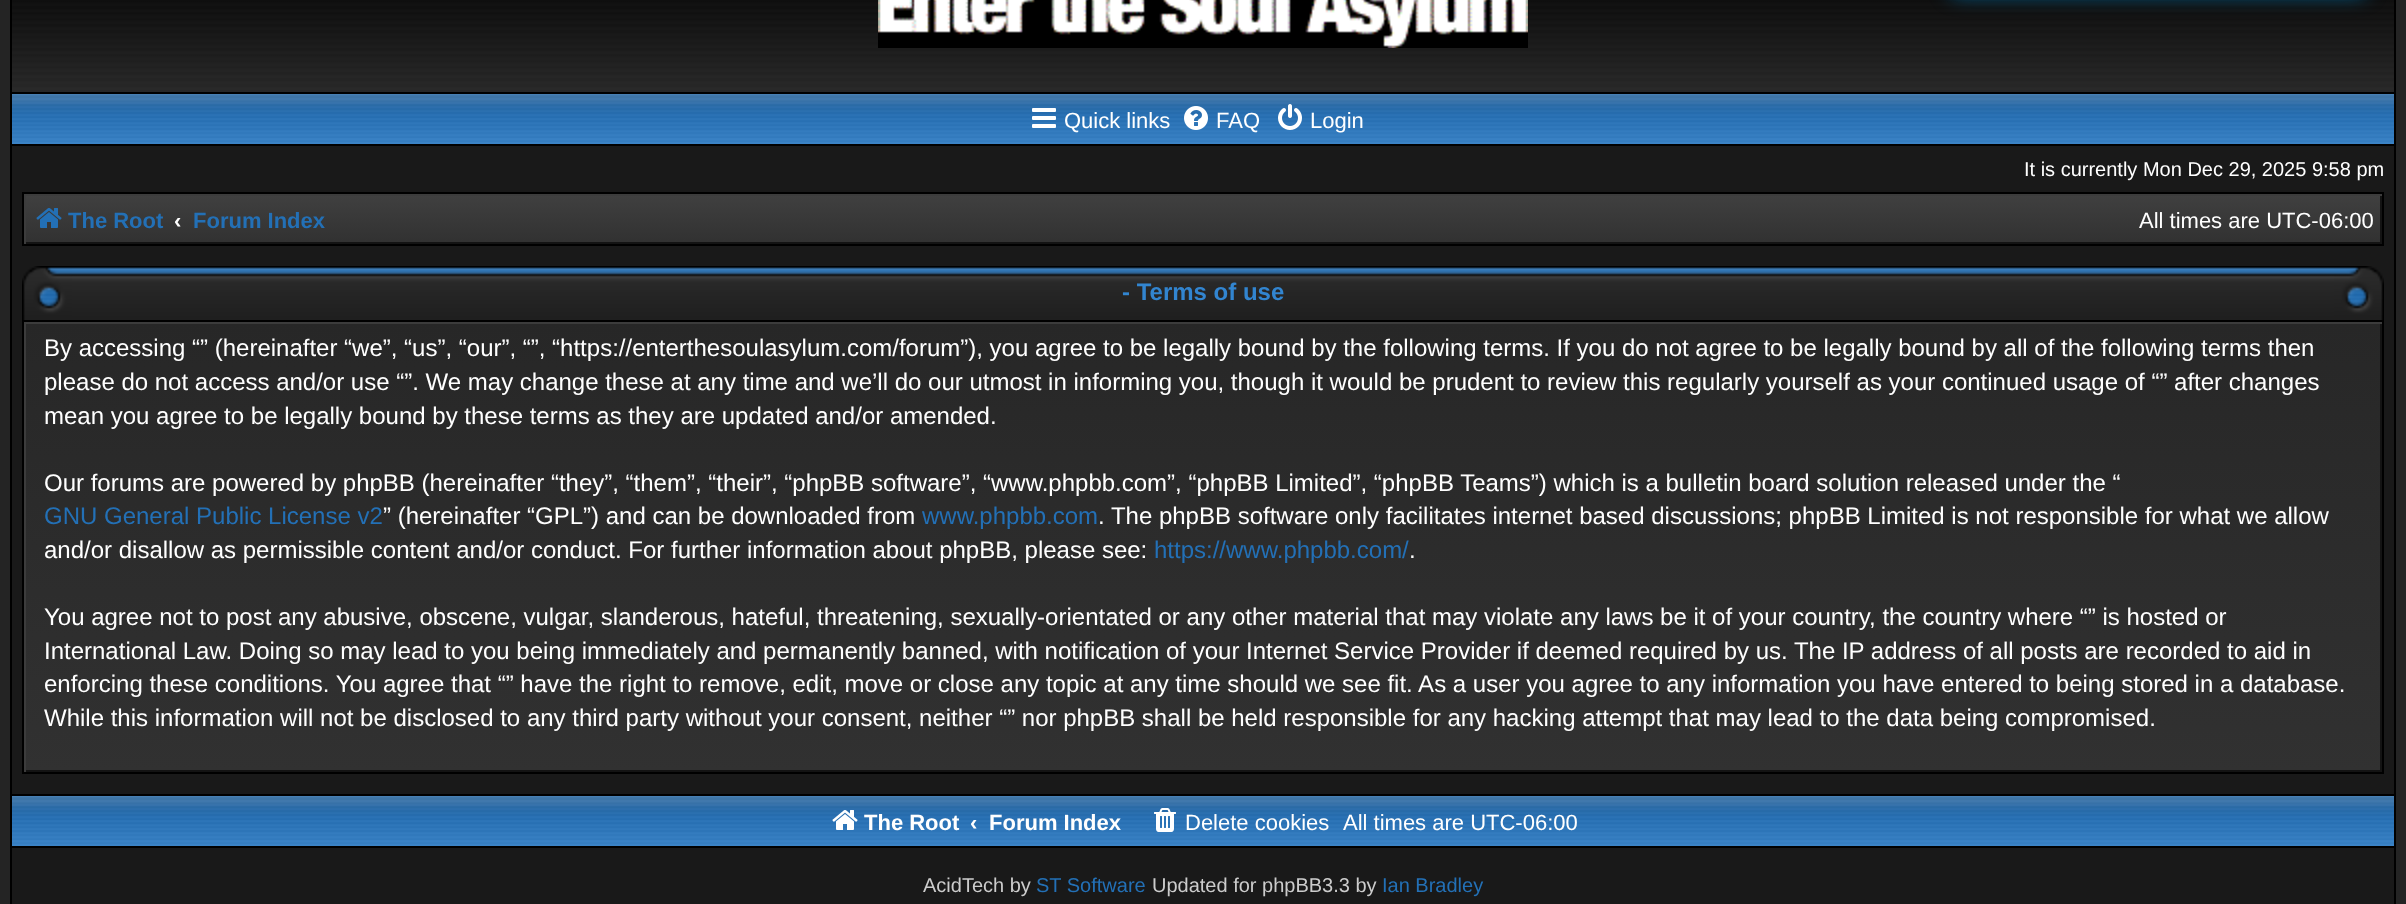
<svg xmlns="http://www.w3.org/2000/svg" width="2406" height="904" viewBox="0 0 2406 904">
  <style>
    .t1 { font: 22px Liberation Sans; fill: #fff; }
    .t2 { font: 20px Liberation Sans; fill: #fff; }
    .t3 { font: bold 22px Liberation Sans; fill: #2370b6; }
    .t4 { font: bold 22px Liberation Sans; fill: #fff; }
    .t5 { font: bold 24px Liberation Sans; fill: #3285d0; }
    .t6 { font: 24px Liberation Sans; fill: #fff; }
    .t7 { font: 24px Liberation Sans; fill: #2370b6; }
    .t8 { font: 20px Liberation Sans; fill: #ccc; }
    .t9 { font: 20px Liberation Sans; fill: #2370b6; }
  </style>
  <defs>
    <linearGradient id="g1" gradientUnits="userSpaceOnUse" x1="1203" y1="194" x2="1203" y2="244"><stop offset="0" stop-color="#404040"/><stop offset="1" stop-color="#313131"/></linearGradient>
    <clipPath id="clip1"><rect x="24" y="194" width="2358" height="50"/></clipPath>
    <linearGradient id="g2" gradientUnits="userSpaceOnUse" x1="1203" y1="322" x2="1203" y2="772"><stop offset="0" stop-color="#272727"/><stop offset="1" stop-color="#313131"/></linearGradient>
    <clipPath id="clip2"><rect x="24" y="322" width="2358" height="450"/></clipPath>
  </defs>
  <rect width="100%" height="100%" fill="#242424"/>
  <rect x="12" y="146" width="2382" height="758" fill="#191919"/>
  <rect x="2394" y="0" width="2" height="904" fill="#000"/>
  <rect x="10" y="0" width="2" height="904" fill="#000"/>
  <image x="12" y="0" width="2382" height="92" href="images/1.png"/>
  <image x="878" y="0" width="650" height="48" href="images/2.png"/>
  <rect x="1950" y="-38" width="416" height="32" rx="8" fill="#0075b0" filter="blur(10px)"/>
  <image x="12" y="94" width="2382" height="50" href="images/3.png"/>
  <rect x="12" y="92" width="2382" height="2" fill="#000"/>
  <rect x="12" y="144" width="2382" height="2" fill="#000"/>
  <image x="1032" y="108" width="24" height="20" href="images/4.png"/>
  <text x="1064" y="128" class="t1">Quick links</text>
  <image x="1184" y="106" width="24" height="24" href="images/5.png"/>
  <text x="1216" y="128" class="t1">FAQ</text>
  <image x="1278" y="104" width="24" height="26" href="images/6.png"/>
  <text x="1310" y="128" class="t1">Login</text>
  <text x="2024" y="176" class="t2">It is currently Mon Dec 29, 2025 9:58 pm</text>
  <rect x="26" y="196" width="2354" height="46" fill="url(#g1)"/>
  <g clip-path="url(#clip1)">
    <path d="M-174-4H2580V442H-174ZM22 192H2380V242H22Z" fill="#131313" fill-rule="evenodd"/>
    <path d="M-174-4H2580V442H-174ZM26 196H2384V246H26Z" fill="#3c3c3c" fill-rule="evenodd"/>
  </g>
  <rect x="23" y="193" width="2360" height="52" fill="none" stroke="#000" stroke-width="2"/>
  <image x="36" y="208" width="26" height="20" href="images/7.png"/>
  <text x="68" y="228" class="t3">The Root</text>
  <text x="174" y="228" class="t4">‹</text>
  <text x="193" y="228" class="t3">Forum Index</text>
  <text x="2139" y="228" class="t1">All times are UTC-06:00</text>
  <image x="22" y="266" width="2362" height="54" href="images/8.png"/>
  <text x="1122" y="300" class="t5">- Terms of use</text>
  <rect x="26" y="324" width="2354" height="446" fill="url(#g2)"/>
  <g clip-path="url(#clip2)">
    <path d="M-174 124H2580V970H-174ZM22 320H2380V770H22Z" fill="#131313" fill-rule="evenodd"/>
    <path d="M-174 124H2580V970H-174ZM26 324H2384V774H26Z" fill="#3c3c3c" fill-rule="evenodd"/>
  </g>
  <rect x="23" y="321" width="2360" height="452" fill="none" stroke="#000" stroke-width="2"/>
  <text x="44" y="356" class="t6">By accessing “” (hereinafter “we”, “us”, “our”, “”, “https://enterthesoulasylum.com/forum”), you agree to be legally bound by the following terms. If you do not agree to be legally bound by all of the following terms then</text>
  <text x="44" y="390" class="t6">please do not access and/or use “”. We may change these at any time and we’ll do our utmost in informing you, though it would be prudent to review this regularly yourself as your continued usage of “” after changes</text>
  <text x="44" y="424" class="t6">mean you agree to be legally bound by these terms as they are updated and/or amended.</text>
  <text x="44" y="491" class="t6">Our forums are powered by phpBB (hereinafter “they”, “them”, “their”, “phpBB software”, “www.phpbb.com”, “phpBB Limited”, “phpBB Teams”) which is a bulletin board solution released under the “</text>
  <text x="44" y="524" class="t7">GNU General Public License v2</text>
  <text x="383" y="524" class="t6">” (hereinafter “GPL”) and can be downloaded from</text>
  <text x="922" y="524" class="t7">www.phpbb.com</text>
  <text x="1098" y="524" class="t6">. The phpBB software only facilitates internet based discussions; phpBB Limited is not responsible for what we allow</text>
  <text x="44" y="558" class="t6">and/or disallow as permissible content and/or conduct. For further information about phpBB, please see:</text>
  <text x="1154" y="558" class="t7">https://www.phpbb.com/</text>
  <text x="1409" y="558" class="t6">.</text>
  <text x="44" y="625" class="t6">You agree not to post any abusive, obscene, vulgar, slanderous, hateful, threatening, sexually-orientated or any other material that may violate any laws be it of your country, the country where “” is hosted or</text>
  <text x="44" y="659" class="t6">International Law. Doing so may lead to you being immediately and permanently banned, with notification of your Internet Service Provider if deemed required by us. The IP address of all posts are recorded to aid in</text>
  <text x="44" y="692" class="t6">enforcing these conditions. You agree that “” have the right to remove, edit, move or close any topic at any time should we see fit. As a user you agree to any information you have entered to being stored in a database.</text>
  <text x="44" y="726" class="t6">While this information will not be disclosed to any third party without your consent, neither “” nor phpBB shall be held responsible for any hacking attempt that may lead to the data being compromised.</text>
  <image x="12" y="796" width="2382" height="50" href="images/3.png"/>
  <rect x="12" y="794" width="2382" height="2" fill="#000"/>
  <rect x="12" y="846" width="2382" height="2" fill="#000"/>
  <image x="832" y="810" width="26" height="20" href="images/9.png"/>
  <text x="864" y="830" class="t4">The Root</text>
  <text x="970" y="830" class="t4">‹</text>
  <text x="989" y="830" class="t4">Forum Index</text>
  <image x="1154" y="808" width="22" height="24" href="images/10.png"/>
  <text x="1185" y="830" class="t1">Delete cookies</text>
  <text x="1343" y="830" class="t1">All times are UTC-06:00</text>
  <text x="923" y="892" class="t8">AcidTech by</text>
  <text x="1036" y="892" class="t9">ST Software</text>
  <text x="1152" y="892" class="t8">Updated for phpBB3.3 by</text>
  <text x="1382" y="892" class="t9">Ian Bradley</text>
</svg>
